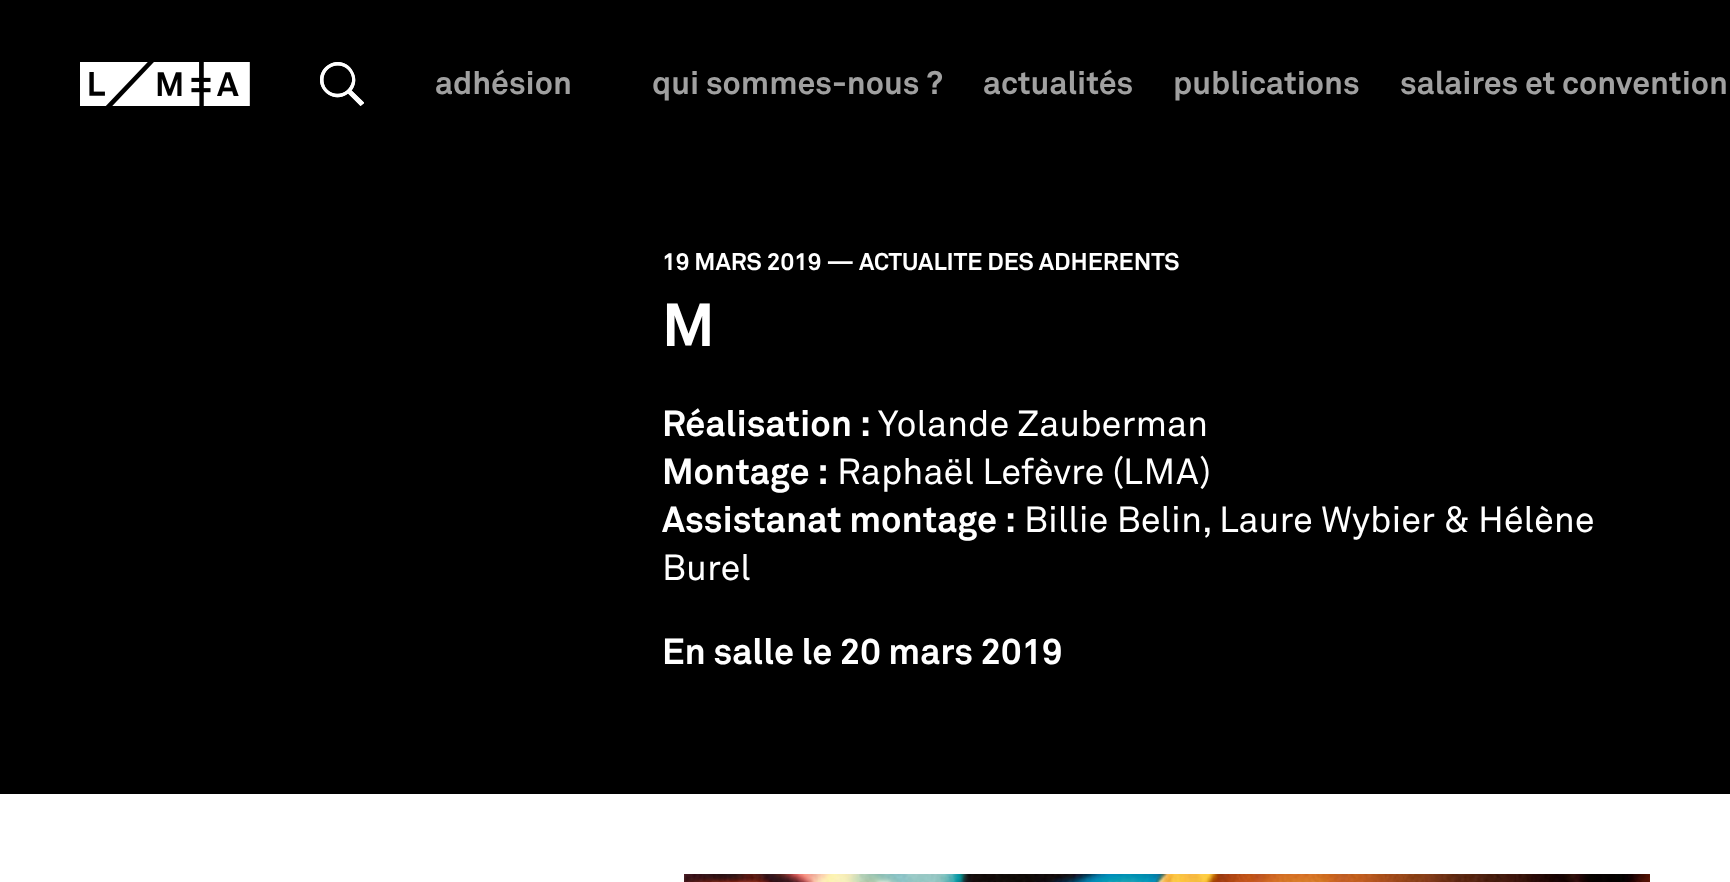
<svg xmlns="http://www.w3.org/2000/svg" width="1730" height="882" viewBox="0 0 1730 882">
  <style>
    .t1 { font: bold 32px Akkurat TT; fill: #a0a0a0; }
    .t2 { font: bold 24px Akkurat TT; fill: #fff; }
    .t3 { font: bold 60px Akkurat TT; fill: #fff; }
    .t4 { font: bold 36px Akkurat TT; fill: #fff; }
    .t5 { font: 36px Akkurat TT; fill: #fff; }
    .t6 { font: 36px Akkurat TT; letter-spacing: 1px; fill: #fff; }
  </style>
  <rect width="100%" height="100%" fill="#000"/>
  <image x="80" y="62" width="170" height="44" href="images/1.png"/>
  <image x="320" y="62" width="44" height="44" href="images/2.png"/>
  <text x="435" y="94" class="t1">adhésion</text>
  <text x="652" y="94" class="t1">qui sommes-nous ?</text>
  <text x="983" y="94" class="t1">actualités</text>
  <text x="1173" y="94" class="t1">publications</text>
  <text x="1400" y="94" class="t1">salaires et convention</text>
  <rect x="0" y="794" width="1730" height="88" fill="#fff"/>
  <text x="662" y="270" class="t2">19 MARS 2019 — ACTUALITE DES ADHERENTS</text>
  <text x="662" y="346" class="t3">M</text>
  <text x="662" y="436" class="t4">Réalisation :</text>
  <text x="878" y="436" class="t5">Yolande Zauberman</text>
  <text x="662" y="484" class="t4">Montage :</text>
  <text x="837" y="484" class="t5">Raphaël Lefèvre (</text>
  <text x="1123" y="484" class="t6">LMA</text>
  <text x="1200" y="484" class="t5">)</text>
  <text x="662" y="532" class="t4">Assistanat montage :</text>
  <text x="1024" y="532" class="t5">Billie Belin, Laure Wybier &amp; Hélène</text>
  <text x="662" y="580" class="t5">Burel</text>
  <text x="662" y="664" class="t4">En salle le 20 mars 2019</text>
  <image x="684" y="874" width="966" height="8" href="images/3.png"/>
</svg>
